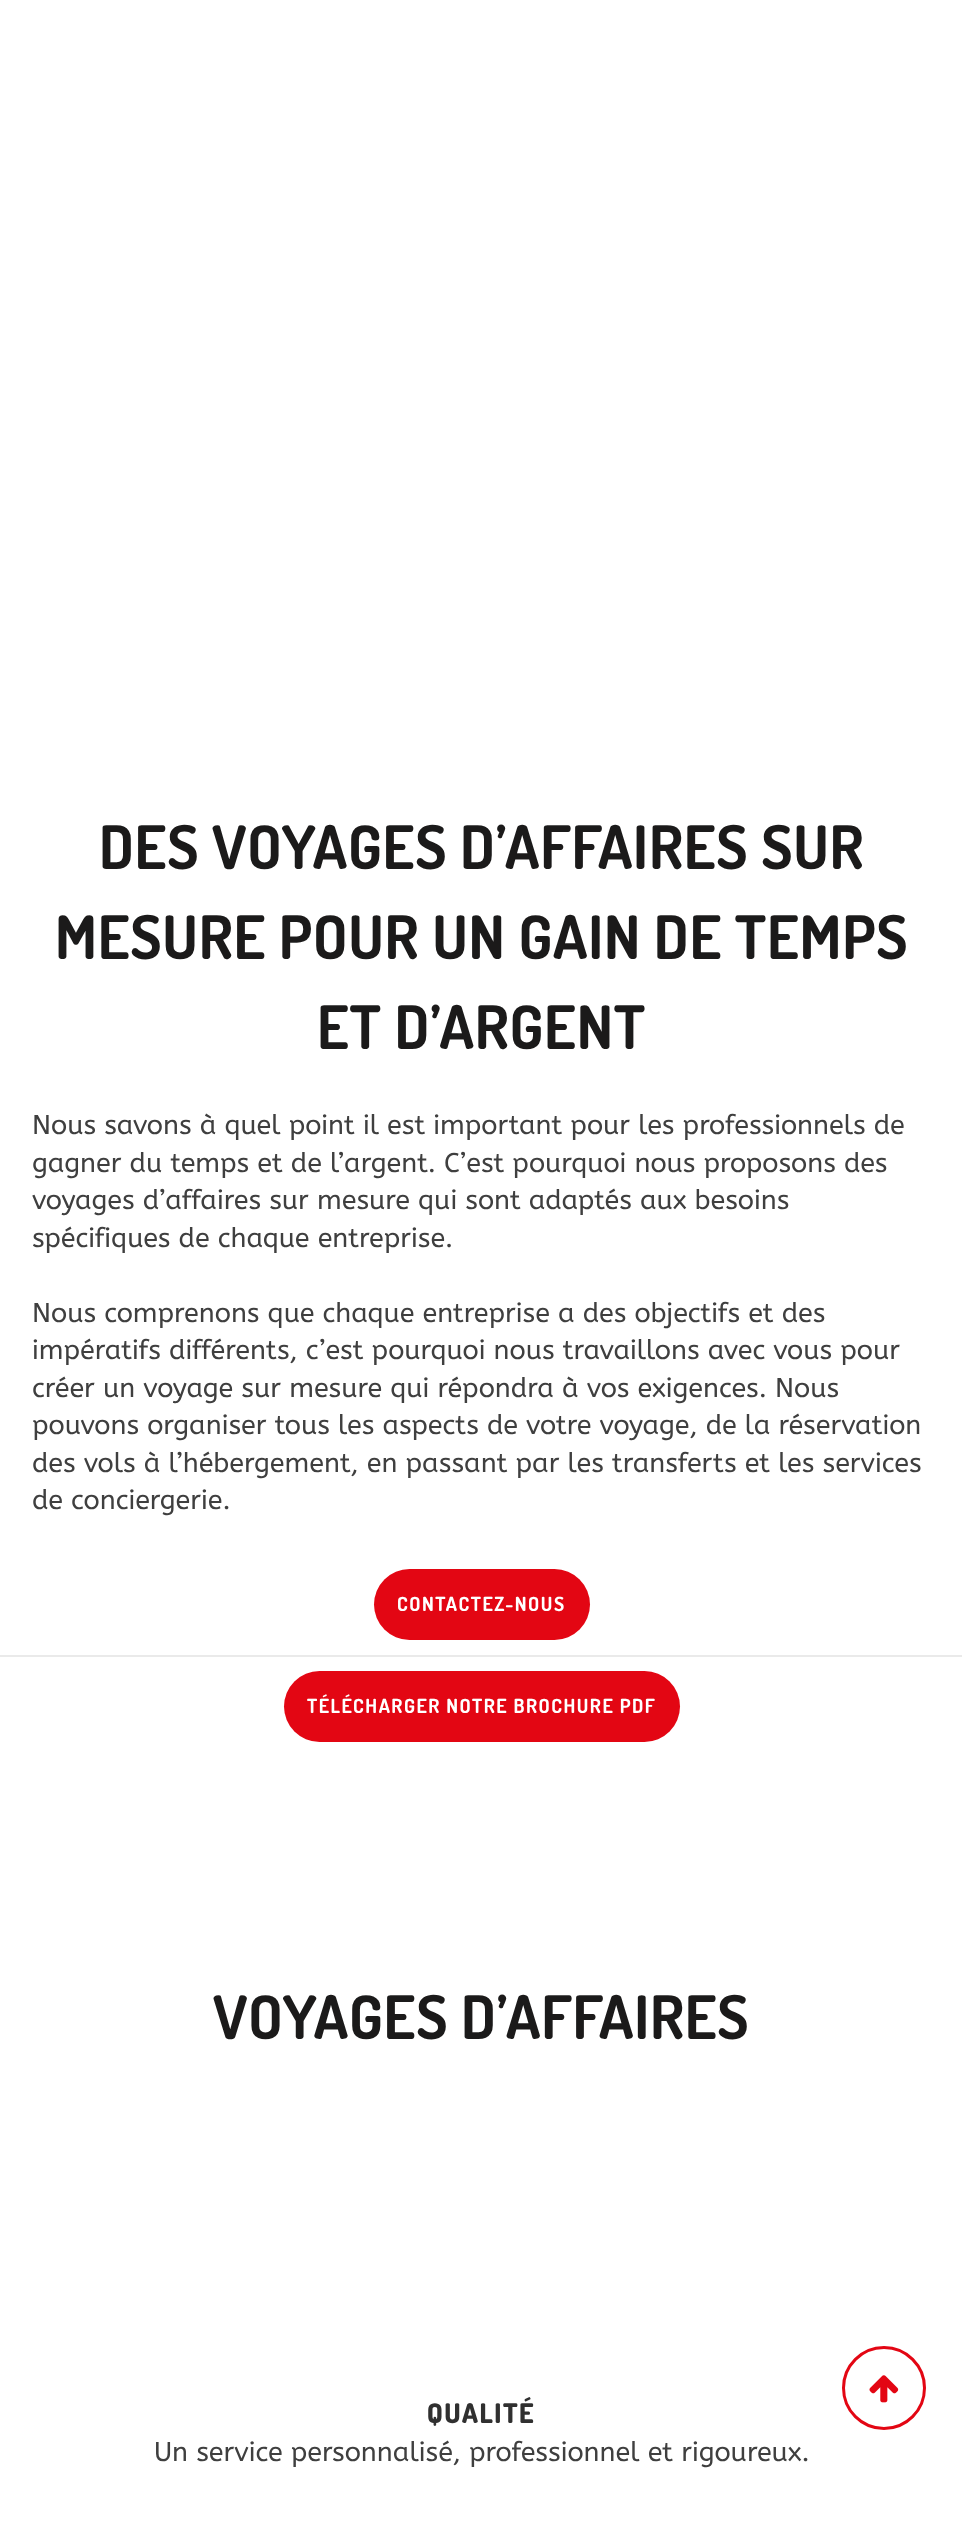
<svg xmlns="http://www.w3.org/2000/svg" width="962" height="2527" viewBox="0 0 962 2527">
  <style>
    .t1 { font: bold 60px Dosis; letter-spacing: 0.75px; fill: #1b1a1a; }
    .t2 { font: 27px ABeeZee; fill: #3f3f3f; }
    .t3 { font: bold 19.5px Dosis; letter-spacing: 1.5px; fill: #fff; }
    .t4 { font: 800 27px Dosis; letter-spacing: 1.5px; fill: #303030; }
  </style>
  <rect width="100%" height="100%" fill="#fff"/>
  <text x="99" y="869" class="t1">DES VOYAGES D’AFFAIRES SUR</text>
  <text x="55" y="959" class="t1">MESURE POUR UN GAIN DE TEMPS</text>
  <text x="317" y="1049" class="t1">ET D’ARGENT</text>
  <text x="32" y="1134" class="t2">Nous savons à quel point il est important pour les professionnels de</text>
  <text x="32" y="1172" class="t2">gagner du temps et de l’argent. C’est pourquoi nous proposons des</text>
  <text x="32" y="1209" class="t2">voyages d’affaires sur mesure qui sont adaptés aux besoins</text>
  <text x="32" y="1247" class="t2">spécifiques de chaque entreprise.</text>
  <text x="32" y="1322" class="t2">Nous comprenons que chaque entreprise a des objectifs et des</text>
  <text x="32" y="1359" class="t2">impératifs différents, c’est pourquoi nous travaillons avec vous pour</text>
  <text x="32" y="1397" class="t2">créer un voyage sur mesure qui répondra à vos exigences. Nous</text>
  <text x="32" y="1434" class="t2">pouvons organiser tous les aspects de votre voyage, de la réservation</text>
  <text x="32" y="1472" class="t2">des vols à l’hébergement, en passant par les transferts et les services</text>
  <text x="32" y="1509" class="t2">de conciergerie.</text>
  <rect x="374" y="1569" width="216" height="71" rx="35.5" fill="#e30613"/>
  <text x="397" y="1611" class="t3">CONTACTEZ-NOUS</text>
  <rect x="0" y="1655" width="962" height="2" fill="#eaeaea"/>
  <rect x="284" y="1671" width="396" height="71" rx="35.5" fill="#e30613"/>
  <text x="307" y="1713" class="t3">TÉLÉCHARGER NOTRE BROCHURE PDF</text>
  <text x="213" y="2039" class="t1">VOYAGES D’AFFAIRES</text>
  <text x="427" y="2423" class="t4">QUALITÉ</text>
  <text x="154" y="2461" class="t2">Un service personnalisé, professionnel et rigoureux.</text>
  <circle cx="884" cy="2388" r="40.5" fill="none" stroke="#e30613" stroke-width="3"/>
  <image x="869" y="2375" width="30" height="28" href="images/1.png"/>
</svg>
